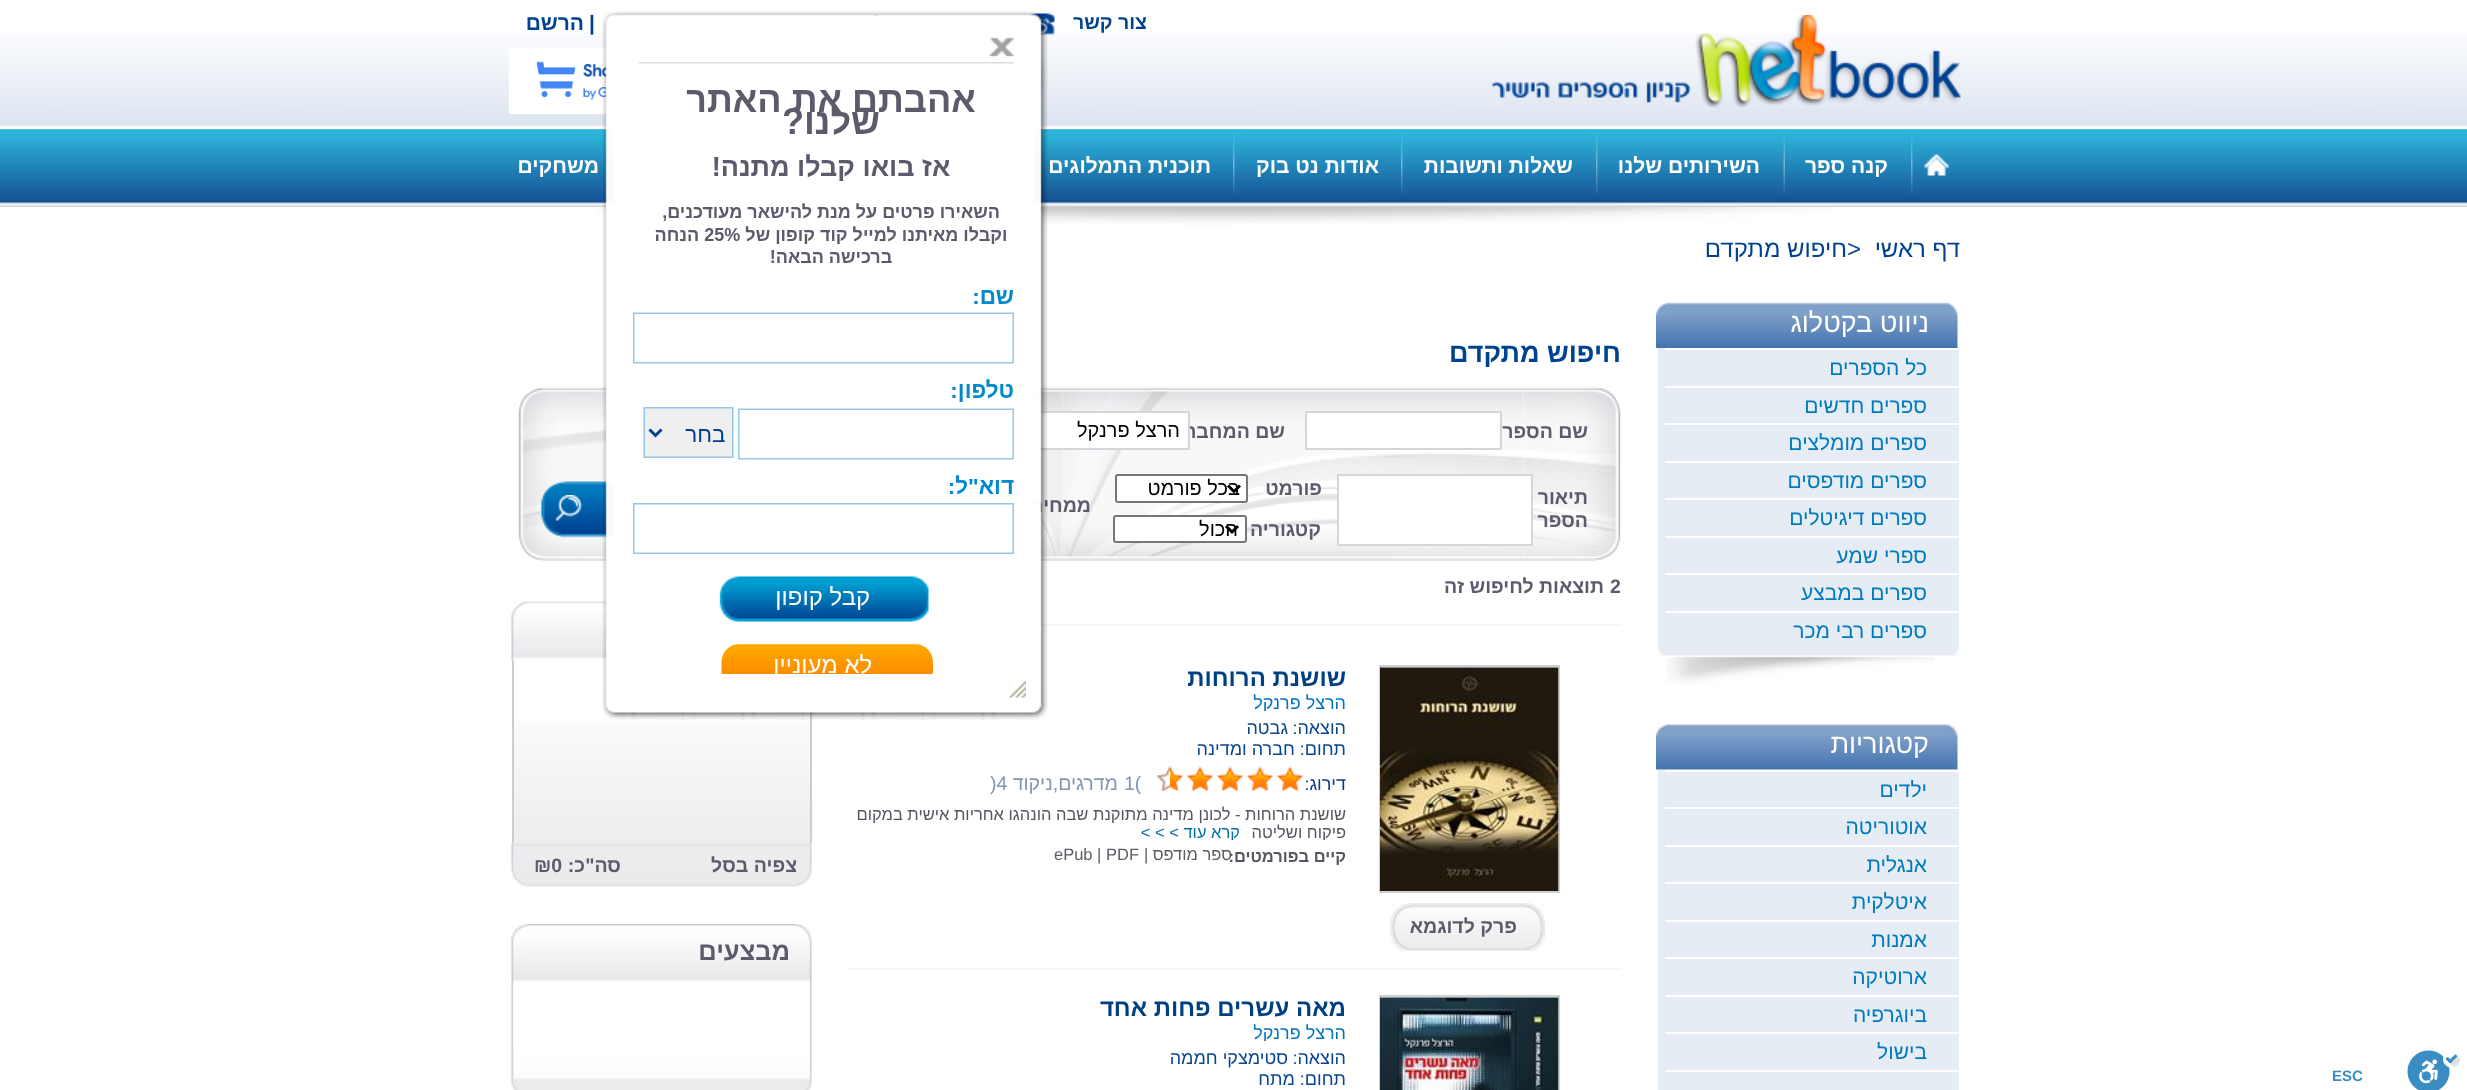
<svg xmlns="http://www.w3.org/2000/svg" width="2467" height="1090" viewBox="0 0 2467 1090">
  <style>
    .t1 { font: bold 19.5px Liberation Sans; direction: rtl; fill: #5b5b6b; }
    .t2 { font: bold 15px Liberation Sans; fill: #3a8dc2; }
    .t3 { font: bold 21px Liberation Sans; fill: #004292; }
    .t4 { font: bold 21px Liberation Sans; direction: rtl; fill: #004292; }
    .t5 { font: bold 19.5px Liberation Sans; direction: rtl; fill: #004292; }
    .t6 { font: bold 21px Liberation Sans; direction: rtl; fill: #fff; }
    .t7 { font: 24px Liberation Sans; direction: rtl; fill: #004292; }
    .t8 { font: 24px Liberation Sans; fill: #004292; }
    .t9 { font: 27px Liberation Sans; direction: rtl; fill: #fff; }
    .t10 { font: 21px Liberation Sans; direction: rtl; fill: #007abd; }
    .t11 { font: bold 27px Liberation Sans; direction: rtl; fill: #004292; }
    .t12 { font: 20px Liberation Sans; direction: rtl; fill: #000; }
    .t13 { font: bold 19.5px Liberation Sans; fill: #5b5b6b; }
    .t14 { font: bold 24px Liberation Sans; direction: rtl; fill: #004082; }
    .t15 { font: 18px Liberation Sans; direction: rtl; fill: #0074c3; }
    .t16 { font: 18px Liberation Sans; direction: rtl; fill: #074592; }
    .t17 { font: 18px Liberation Sans; direction: rtl; fill: #0d3692; }
    .t18 { font: 19.5px Liberation Sans; fill: #8296ae; }
    .t19 { font: 19.5px Liberation Sans; direction: rtl; fill: #8296ae; }
    .t20 { font: 16.5px Liberation Sans; direction: rtl; fill: #565660; }
    .t21 { font: 16.5px Liberation Sans; direction: rtl; fill: #0370a9; }
    .t22 { font: bold 16.5px Liberation Sans; direction: rtl; fill: #565660; }
    .t23 { font: 16.5px Liberation Sans; direction: rtl; fill: #5c5b63; }
    .t24 { font: 16.5px Liberation Sans; fill: #5c5b63; }
    .t25 { font: bold 25.5px Liberation Sans; direction: rtl; fill: #5b5b6b; }
  </style>
  <defs>
    <clipPath id="clip1"><rect x="915" y="692" width="432" height="19"/></clipPath>
    <clipPath id="clip2"><rect x="845" y="804" width="502" height="36"/></clipPath>
    <clipPath id="clip3"><rect x="915" y="1022" width="432" height="19"/></clipPath>
  </defs>
  <rect width="100%" height="100%" fill="#fff"/>
  <image x="0" y="33" width="2467" height="94" href="images/12.png"/>
  <image x="602" y="11" width="27" height="27" href="images/3.png"/>
  <image x="873" y="14" width="6" height="2" href="images/15.png"/>
  <image x="628" y="11" width="391" height="12" href="images/2.png"/>
  <image x="1029" y="13" width="26" height="22" href="images/14.png"/>
  <image x="1018" y="11" width="30" height="27" href="images/1.png"/>
  <image x="0" y="129" width="2467" height="78" href="images/17.png"/>
  <image x="597" y="207" width="1236" height="18" href="images/22.png"/>
  <image x="518" y="387" width="1103" height="174" href="images/27.png"/>
  <text x="1285" y="438" class="t1">שם המחבר</text>
  <rect x="1034" y="413" width="154" height="35" fill="#fff"/>
  <rect x="994" y="412" width="195" height="37" fill="none" stroke="#d6d6da" stroke-width="2"/>
  <text x="1091" y="512" class="t1">ממחיר</text>
  <rect x="1034" y="624" width="588" height="2" fill="#f6f6f6"/>
  <image x="1034" y="37" width="14" height="653" href="images/4.png"/>
  <image x="508" y="48" width="106" height="66" href="images/16.png"/>
  <rect x="613" y="412" width="195" height="37" fill="none" stroke="#d6d6da" stroke-width="2"/>
  <image x="511" y="601" width="103" height="61" href="images/36.png"/>
  <image x="602" y="37" width="12" height="653" href="images/5.png"/>
  <image x="602" y="690" width="27" height="30" href="images/8.png"/>
  <rect x="810" y="712" width="2" height="131" fill="#ccccd1"/>
  <image x="628" y="705" width="391" height="15" href="images/7.png"/>
  <image x="1018" y="690" width="30" height="30" href="images/6.png"/>
  <rect x="614" y="33" width="420" height="528" fill="#fff"/>
  <image x="633" y="37" width="381" height="637" href="images/9.png"/>
  <image x="1009" y="681" width="17" height="17" href="images/10.png"/>
  <image x="2407" y="1050" width="53" height="40" href="images/11.png"/>
  <text x="2332" y="1081" class="t2">ESC</text>
  <image x="1492" y="15" width="469" height="93" href="images/13.png"/>
  <text x="589" y="30" class="t3">|</text>
  <text x="584" y="30" class="t4">הרשם</text>
  <text x="1147" y="29" class="t5">צור קשר</text>
  <image x="1924" y="154" width="25" height="22" href="images/18.png"/>
  <image x="1911" y="134" width="2" height="61" href="images/19.png"/>
  <text x="1888" y="173" class="t6">קנה ספר</text>
  <image x="1783" y="134" width="2" height="61" href="images/20.png"/>
  <text x="1760" y="173" class="t6">השירותים שלנו</text>
  <image x="1596" y="134" width="2" height="61" href="images/19.png"/>
  <text x="1573" y="173" class="t6">שאלות ותשובות</text>
  <image x="1401" y="134" width="2" height="61" href="images/19.png"/>
  <text x="1379" y="173" class="t6">אודות נט בוק</text>
  <image x="1233" y="134" width="2" height="61" href="images/21.png"/>
  <text x="1211" y="173" class="t6">תוכנית התמלוגים</text>
  <text x="599" y="173" class="t6">משחקים</text>
  <text x="1960" y="257" class="t7">דף ראשי</text>
  <text x="1847" y="257" class="t8">&gt;</text>
  <text x="1847" y="257" class="t7">חיפוש מתקדם</text>
  <image x="1656" y="302" width="302" height="46" href="images/23.png"/>
  <text x="1929" y="332" class="t9">ניווט בקטלוג</text>
  <rect x="1658" y="348" width="301" height="299" fill="#e5ecf4"/>
  <rect x="1665" y="348" width="294" height="2" fill="#fff"/>
  <text x="1927" y="375" class="t10">כל הספרים</text>
  <rect x="1665" y="386" width="294" height="2" fill="#fff"/>
  <text x="1927" y="413" class="t10">ספרים חדשים</text>
  <rect x="1665" y="423" width="294" height="2" fill="#fff"/>
  <text x="1927" y="450" class="t10">ספרים מומלצים</text>
  <rect x="1665" y="461" width="294" height="2" fill="#fff"/>
  <text x="1927" y="488" class="t10">ספרים מודפסים</text>
  <rect x="1665" y="498" width="294" height="2" fill="#fff"/>
  <text x="1927" y="525" class="t10">ספרים דיגיטלים</text>
  <rect x="1665" y="536" width="294" height="2" fill="#fff"/>
  <text x="1927" y="563" class="t10">ספרי שמע</text>
  <rect x="1665" y="573" width="294" height="2" fill="#fff"/>
  <text x="1927" y="600" class="t10">ספרים במבצע</text>
  <rect x="1665" y="611" width="294" height="2" fill="#fff"/>
  <text x="1927" y="638" class="t10">ספרים רבי מכר</text>
  <image x="1657" y="646" width="302" height="10" href="images/24.png"/>
  <image x="1666" y="656" width="269" height="28" href="images/25.png"/>
  <image x="1656" y="724" width="302" height="46" href="images/26.png"/>
  <text x="1929" y="753" class="t9">קטגוריות</text>
  <rect x="1658" y="770" width="301" height="320" fill="#e5ecf4"/>
  <rect x="1665" y="770" width="294" height="2" fill="#fff"/>
  <text x="1927" y="797" class="t10">ילדים</text>
  <rect x="1665" y="807" width="294" height="2" fill="#fff"/>
  <text x="1927" y="834" class="t10">אוטוריטה</text>
  <rect x="1665" y="845" width="294" height="2" fill="#fff"/>
  <text x="1927" y="872" class="t10">אנגלית</text>
  <rect x="1665" y="882" width="294" height="2" fill="#fff"/>
  <text x="1927" y="909" class="t10">איטלקית</text>
  <rect x="1665" y="920" width="294" height="2" fill="#fff"/>
  <text x="1927" y="947" class="t10">אמנות</text>
  <rect x="1665" y="957" width="294" height="2" fill="#fff"/>
  <text x="1927" y="984" class="t10">ארוטיקה</text>
  <rect x="1665" y="995" width="294" height="2" fill="#fff"/>
  <text x="1927" y="1022" class="t10">ביוגרפיה</text>
  <rect x="1665" y="1032" width="294" height="2" fill="#fff"/>
  <text x="1927" y="1059" class="t10">בישול</text>
  <rect x="1665" y="1070" width="294" height="2" fill="#fff"/>
  <text x="1621" y="362" class="t11">חיפוש מתקדם</text>
  <text x="1588" y="438" class="t1">שם הספר</text>
  <rect x="1306" y="412" width="195" height="37" fill="#fff" stroke="#d6d6da" stroke-width="2"/>
  <text x="1180" y="437" class="t12">הרצל פרנקל</text>
  <rect x="1338" y="475" width="194" height="70" fill="#fff" stroke="#d6d6da" stroke-width="2"/>
  <text x="1322" y="495" class="t1">פורמט</text>
  <rect x="1116" y="475" width="131" height="27" rx="2" fill="#fff" stroke="#767676" stroke-width="2"/>
  <path d="M1228 485.5L1234 491.5L1240 485.5" fill="none" stroke="#000" stroke-width="3"/>
  <text x="1240" y="495" class="t12">בכל פורמט</text>
  <text x="1588" y="504" class="t1">תיאור</text>
  <text x="1588" y="527" class="t1">הספר</text>
  <image x="555" y="495" width="28" height="26" href="images/28.png"/>
  <text x="1321" y="536" class="t1">קטגוריה</text>
  <rect x="1114" y="516" width="132" height="26" rx="2" fill="#fff" stroke="#767676" stroke-width="2"/>
  <path d="M1226 526L1232 532L1238 526" fill="none" stroke="#000" stroke-width="3"/>
  <text x="1238" y="536" class="t12">הכול</text>
  <text x="1610" y="593" class="t13">2</text>
  <text x="1604" y="593" class="t1">תוצאות לחיפוש זה</text>
  <rect x="848" y="968" width="774" height="2" fill="#f6f6f6"/>
  <text x="1346" y="686" class="t14">שושנת הרוחות</text>
  <g clip-path="url(#clip1)">
    <text x="1346" y="709" class="t15">הרצל פרנקל</text>
  </g>
  <text x="1346" y="734" class="t16">הוצאה:</text>
  <text x="1288" y="734" class="t16">גבטה</text>
  <text x="1346" y="755" class="t16">תחום: חברה ומדינה</text>
  <text x="1346" y="790" class="t17">דירוג:</text>
  <image x="1276" y="766" width="28" height="26" href="images/29.png"/>
  <image x="1246" y="766" width="28" height="26" href="images/30.png"/>
  <image x="1216" y="766" width="28" height="26" href="images/30.png"/>
  <image x="1186" y="766" width="28" height="26" href="images/31.png"/>
  <image x="1156" y="766" width="28" height="26" href="images/31.png"/>
  <image x="1156" y="766" width="14" height="25" href="images/32.png"/>
  <text x="1124" y="790" class="t18">1(</text>
  <text x="1118" y="790" class="t19">מדרגים,ניקוד</text>
  <text x="990" y="790" class="t18">)4</text>
  <text x="1346" y="820" class="t20">שושנת הרוחות - לכונן מדינה מתוקנת שבה הונהגו אחריות אישית במקום</text>
  <g clip-path="url(#clip2)">
    <text x="1346" y="838" class="t20">פיקוח ושליטה</text>
    <text x="1240" y="838" class="t21">קרא עוד &gt; &gt; &gt;</text>
  </g>
  <text x="1346" y="862" class="t22">קיים בפורמטים:</text>
  <text x="1232" y="860" class="t23">ספר מודפס</text>
  <text x="1144" y="860" class="t24">|</text>
  <text x="1054" y="860" class="t24">ePub | PDF</text>
  <rect x="1380" y="666" width="179" height="226" fill="none" stroke="#cfd1d0" stroke-width="2"/>
  <image x="1380" y="667" width="179" height="224" href="images/33.png"/>
  <image x="1390" y="903" width="156" height="48" href="images/34.png"/>
  <text x="1517" y="933" class="t1">פרק לדוגמא</text>
  <rect x="1380" y="996" width="179" height="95" fill="none" stroke="#cfd1d0" stroke-width="2"/>
  <image x="1380" y="997" width="179" height="93" href="images/35.png"/>
  <text x="1346" y="1016" class="t14">מאה עשרים פחות אחד</text>
  <g clip-path="url(#clip3)">
    <text x="1346" y="1039" class="t15">הרצל פרנקל</text>
  </g>
  <text x="1346" y="1064" class="t16">הוצאה:</text>
  <text x="1288" y="1064" class="t16">סטימצקי חממה</text>
  <text x="1346" y="1085" class="t16">תחום: מתח</text>
  <image x="514" y="721" width="296" height="122" href="images/37.png"/>
  <rect x="512" y="660" width="2" height="183" fill="#ccccd1"/>
  <image x="511" y="843" width="301" height="44" href="images/38.png"/>
  <text x="797" y="872" class="t1">צפיה בסל</text>
  <text x="621" y="872" class="t1">סה"כ:</text>
  <text x="534" y="872" class="t13">₪0</text>
  <image x="511" y="924" width="301" height="61" href="images/39.png"/>
  <text x="790" y="960" class="t25">מבצעים</text>
  <image x="511" y="982" width="301" height="97" href="images/40.png"/>
  <image x="511" y="1078" width="301" height="12" href="images/41.png"/>
</svg>
